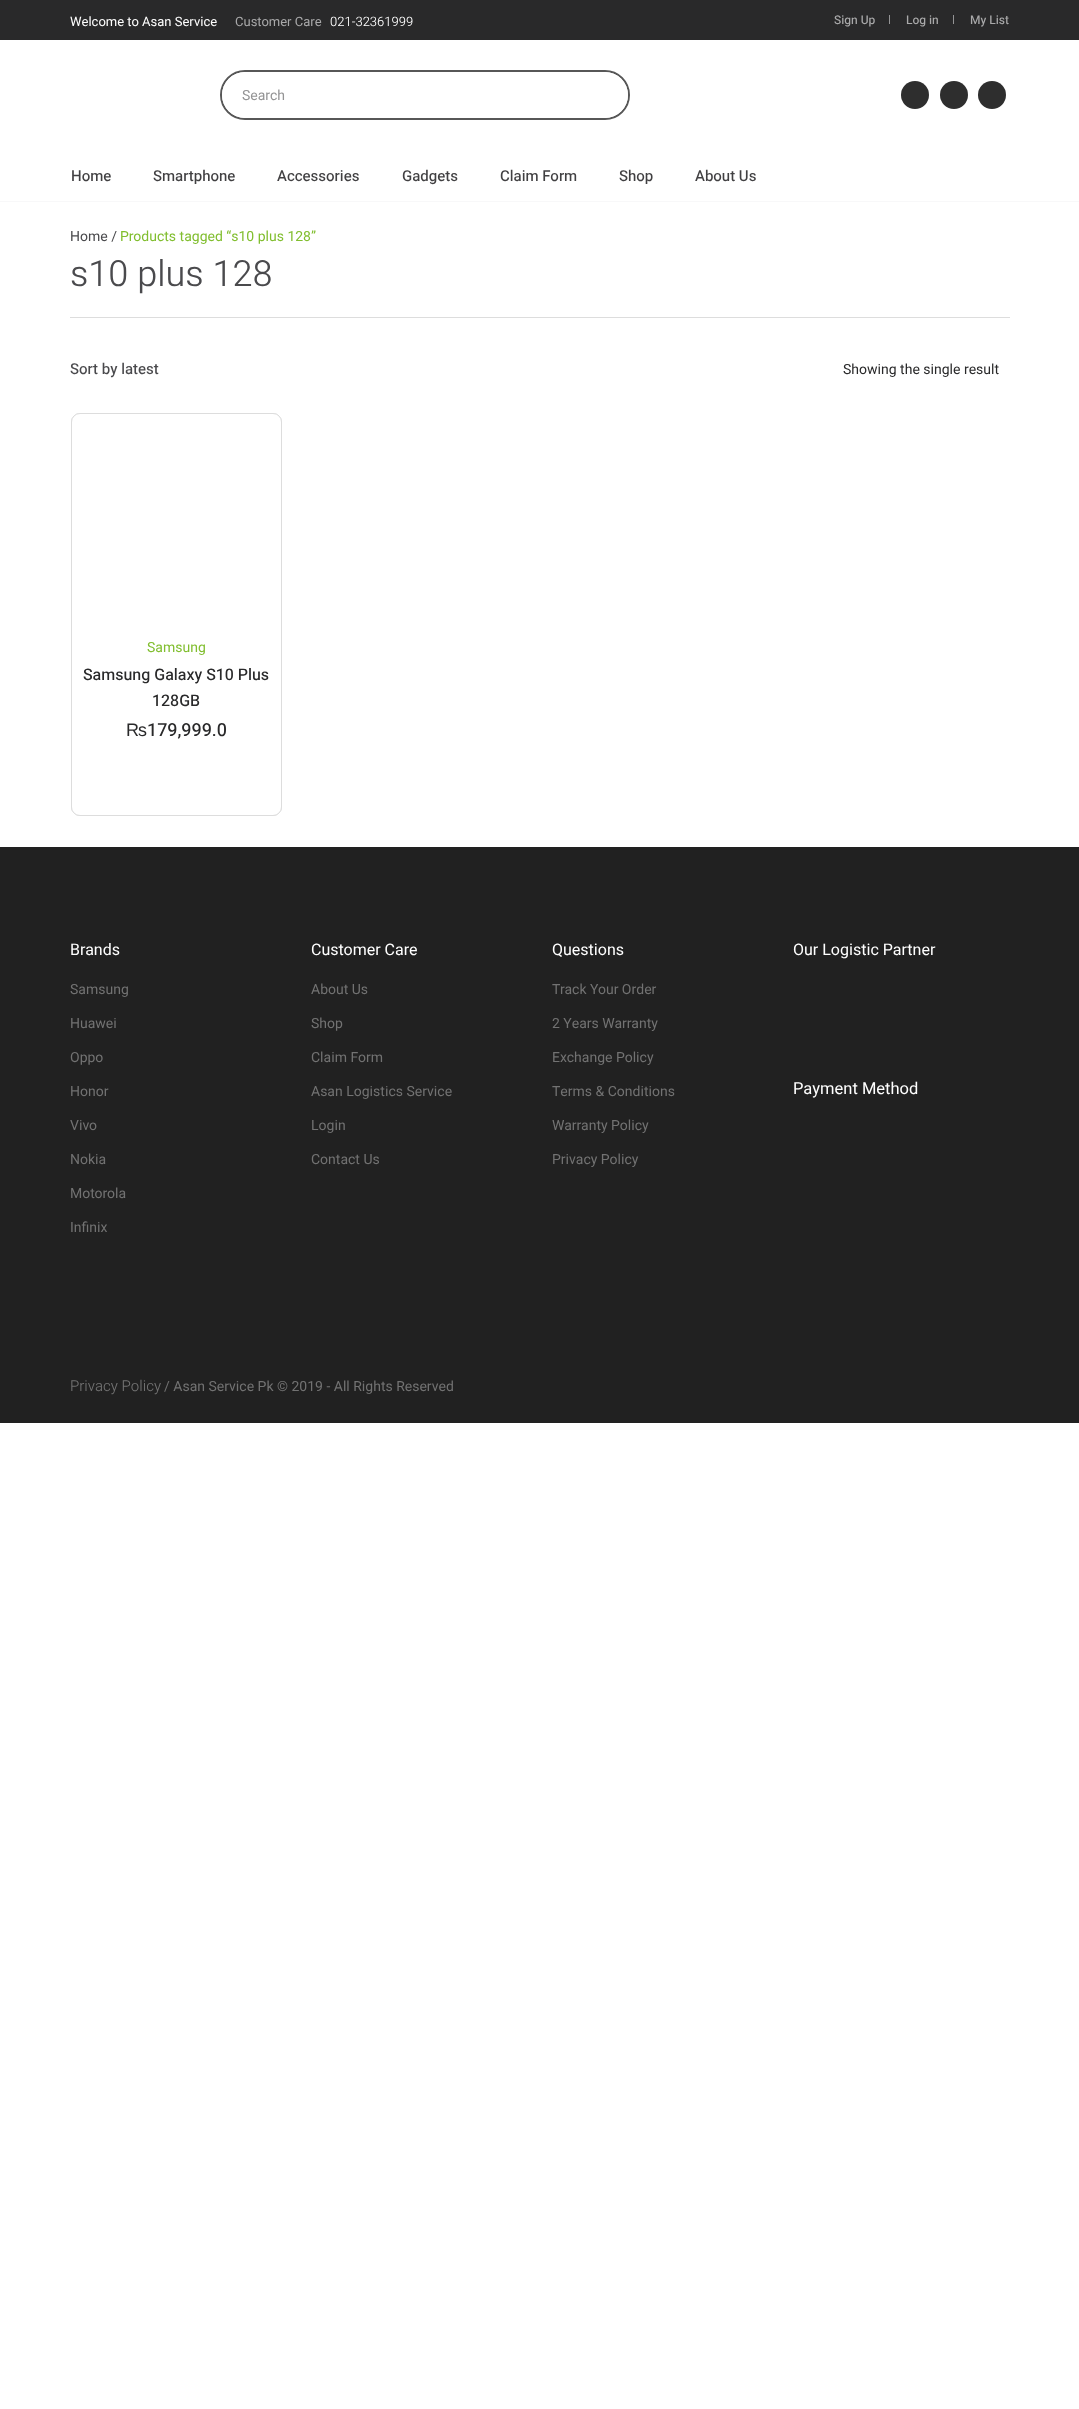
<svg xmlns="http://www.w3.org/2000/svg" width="1079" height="2409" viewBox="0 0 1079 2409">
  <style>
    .t1 { font: 13px Heebo; fill: #fff; }
    .t2 { font: 13px Heebo; fill: #a9a9aa; }
    .t3 { font: 300 13px Heebo; fill: #fff; }
    .t4 { font: 500 12px Heebo; fill: #a9a9aa; }
    .t5 { font: 14px Heebo; fill: #949495; }
    .t6 { font: 500 15px Heebo; fill: #414042; }
    .t7 { font: 14px Heebo; fill: #4a4a4d; }
    .t8 { font: 14px Heebo; fill: #81be2f; }
    .t9 { font: 300 36px Heebo; fill: #4a4a4d; }
    .t10 { font: 500 15px Heebo; fill: #4a4a4d; }
    .t11 { font: 14px Heebo; fill: #29292a; }
    .t12 { font: 500 16px Heebo; fill: #29292a; }
    .t13 { font: 18px Liberation Sans; fill: #29292a; }
    .t14 { font: 500 18px Heebo; fill: #29292a; }
    .t15 { font: 16px Heebo; fill: #fff; }
    .t16 { font: 14px Heebo; fill: #727272; }
    .t17 { font: 16.5px Heebo; fill: #fff; }
    .t18 { font: 300 15px Heebo; fill: #727272; }
  </style>
  <rect width="100%" height="100%" fill="#fff"/>
  <rect x="0" y="0" width="1079" height="40" fill="#29292a"/>
  <text x="70" y="26" class="t1">Welcome to Asan Service</text>
  <text x="235" y="26" class="t2">Customer Care</text>
  <text x="330" y="26" class="t3">021-32361999</text>
  <text x="834" y="24" class="t4">Sign Up</text>
  <rect x="889" y="15" width="1" height="9" fill="#949495"/>
  <text x="906" y="24" class="t4">Log in</text>
  <rect x="953" y="15" width="1" height="9" fill="#949495"/>
  <text x="970" y="24" class="t4">My List</text>
  <rect x="221" y="71" width="408" height="48" rx="24" fill="none" stroke="#575757" stroke-width="2"/>
  <rect x="222" y="72" width="406" height="46" rx="23" fill="#fff"/>
  <text x="242" y="100" class="t5">Search</text>
  <circle cx="915" cy="95" r="14" fill="#2e2e2e"/>
  <circle cx="954" cy="95" r="14" fill="#2e2e2e"/>
  <circle cx="992" cy="95" r="14" fill="#2e2e2e"/>
  <rect x="0" y="201" width="1079" height="1" fill="#f8f8f9"/>
  <text x="71" y="181" class="t6">Home</text>
  <text x="153" y="181" class="t6">Smartphone</text>
  <text x="277" y="181" class="t6">Accessories</text>
  <text x="402" y="181" class="t6">Gadgets</text>
  <text x="500" y="181" class="t6">Claim Form</text>
  <text x="619" y="181" class="t6">Shop</text>
  <text x="695" y="181" class="t6">About Us</text>
  <rect x="70" y="317" width="940" height="1" fill="#ddd"/>
  <text x="70" y="241" class="t7">Home /</text>
  <text x="120" y="241" class="t8">Products tagged “s10 plus 128”</text>
  <text x="70" y="286" class="t9">s10 plus 128</text>
  <text x="70" y="374" class="t10">Sort by latest</text>
  <text x="843" y="374" class="t11">Showing the single result</text>
  <rect x="71.5" y="413.5" width="210" height="402" rx="8.5" fill="none" stroke="#ddd"/>
  <rect x="71.5" y="413.5" width="210" height="402" rx="8.5" fill="#fff" stroke="#ddd"/>
  <text x="147" y="652" class="t8">Samsung</text>
  <text x="83" y="680" class="t12">Samsung Galaxy S10 Plus</text>
  <text x="152" y="706" class="t12">128GB</text>
  <text x="126" y="736" class="t13">₨</text>
  <text x="147" y="736" class="t14">179,999.0</text>
  <rect x="0" y="847" width="1079" height="576" fill="#212121"/>
  <text x="70" y="955" class="t15">Brands</text>
  <text x="70" y="994" class="t16">Samsung</text>
  <text x="70" y="1028" class="t16">Huawei</text>
  <text x="70" y="1062" class="t16">Oppo</text>
  <text x="70" y="1096" class="t16">Honor</text>
  <text x="70" y="1130" class="t16">Vivo</text>
  <text x="70" y="1164" class="t16">Nokia</text>
  <text x="70" y="1198" class="t16">Motorola</text>
  <text x="70" y="1232" class="t16">Infinix</text>
  <text x="311" y="955" class="t15">Customer Care</text>
  <text x="311" y="994" class="t16">About Us</text>
  <text x="311" y="1028" class="t16">Shop</text>
  <text x="311" y="1062" class="t16">Claim Form</text>
  <text x="311" y="1096" class="t16">Asan Logistics Service</text>
  <text x="311" y="1130" class="t16">Login</text>
  <text x="311" y="1164" class="t16">Contact Us</text>
  <text x="552" y="955" class="t15">Questions</text>
  <text x="552" y="994" class="t16">Track Your Order</text>
  <text x="552" y="1028" class="t16">2 Years Warranty</text>
  <text x="552" y="1062" class="t16">Exchange Policy</text>
  <text x="552" y="1096" class="t16">Terms &amp; Conditions</text>
  <text x="552" y="1130" class="t16">Warranty Policy</text>
  <text x="552" y="1164" class="t16">Privacy Policy</text>
  <text x="793" y="955" class="t15">Our Logistic Partner</text>
  <text x="793" y="1094" class="t17">Payment Method</text>
  <text x="70" y="1391" class="t18">Privacy Policy</text>
  <text x="164" y="1391" class="t16">/ Asan Service Pk © 2019 - All Rights Reserved</text>
</svg>
